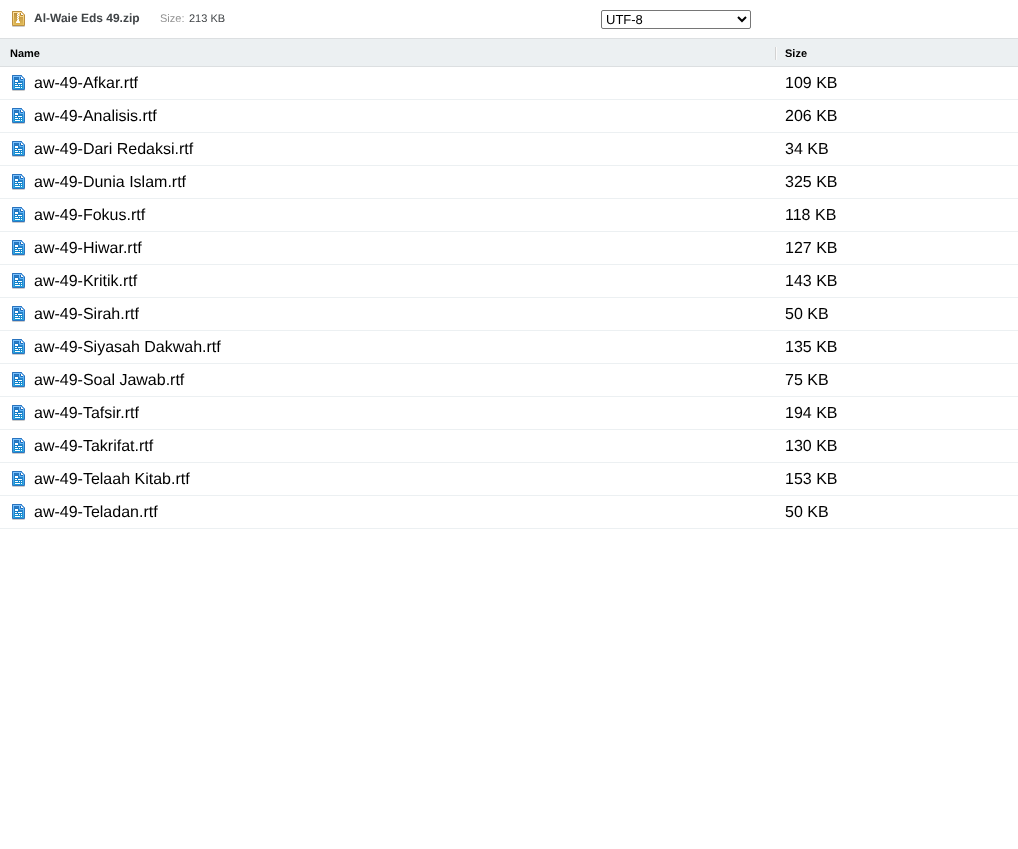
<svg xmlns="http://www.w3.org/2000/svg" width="1018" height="849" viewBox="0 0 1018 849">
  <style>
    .t1 { font: bold 12px Liberation Sans; fill: #404447; }
    .t2 { font: 11px Liberation Sans; fill: #939393; }
    .t3 { font: 11px Liberation Sans; fill: #404447; }
    .t4 { font: 13px Liberation Sans; fill: #000; }
    .t5 { font: bold 11px Liberation Sans; fill: #000; }
    .t6 { font: 16px Liberation Sans; fill: #000; }
  </style>
  <rect width="100%" height="100%" fill="#fff"/>
  <image x="12" y="11" width="13" height="16" href="images/1.png"/>
  <text x="34" y="22" class="t1">Al-Waie Eds 49.zip</text>
  <text x="160" y="22" class="t2">Size:</text>
  <text x="189" y="22" class="t3">213 KB</text>
  <rect x="601.5" y="10.5" width="149" height="18" rx="1.5" fill="none" stroke="#767676"/>
  <path d="M738 17L742 21L746 17" fill="none" stroke="#000" stroke-width="2"/>
  <text x="606" y="24" class="t4">UTF-8</text>
  <rect x="0" y="39" width="1018" height="27" fill="#ecf0f2"/>
  <rect x="0" y="38" width="1018" height="1" fill="#dcdfe1"/>
  <rect x="0" y="66" width="1018" height="1" fill="#dcdfe1"/>
  <text x="10" y="57" class="t5">Name</text>
  <image x="775" y="47" width="2" height="13" href="images/2.png"/>
  <text x="785" y="57" class="t5">Size</text>
  <rect x="0" y="99" width="1018" height="1" fill="#ecf0f2"/>
  <image x="12" y="75" width="13" height="16" href="images/3.png"/>
  <text x="34" y="88" class="t6">aw-49-Afkar.rtf</text>
  <text x="785" y="88" class="t6">109 KB</text>
  <rect x="0" y="132" width="1018" height="1" fill="#ecf0f2"/>
  <image x="12" y="108" width="13" height="16" href="images/3.png"/>
  <text x="34" y="121" class="t6">aw-49-Analisis.rtf</text>
  <text x="785" y="121" class="t6">206 KB</text>
  <rect x="0" y="165" width="1018" height="1" fill="#ecf0f2"/>
  <image x="12" y="141" width="13" height="16" href="images/3.png"/>
  <text x="34" y="154" class="t6">aw-49-Dari Redaksi.rtf</text>
  <text x="785" y="154" class="t6">34 KB</text>
  <rect x="0" y="198" width="1018" height="1" fill="#ecf0f2"/>
  <image x="12" y="174" width="13" height="16" href="images/3.png"/>
  <text x="34" y="187" class="t6">aw-49-Dunia Islam.rtf</text>
  <text x="785" y="187" class="t6">325 KB</text>
  <rect x="0" y="231" width="1018" height="1" fill="#ecf0f2"/>
  <image x="12" y="207" width="13" height="16" href="images/3.png"/>
  <text x="34" y="220" class="t6">aw-49-Fokus.rtf</text>
  <text x="785" y="220" class="t6">118 KB</text>
  <rect x="0" y="264" width="1018" height="1" fill="#ecf0f2"/>
  <image x="12" y="240" width="13" height="16" href="images/3.png"/>
  <text x="34" y="253" class="t6">aw-49-Hiwar.rtf</text>
  <text x="785" y="253" class="t6">127 KB</text>
  <rect x="0" y="297" width="1018" height="1" fill="#ecf0f2"/>
  <image x="12" y="273" width="13" height="16" href="images/3.png"/>
  <text x="34" y="286" class="t6">aw-49-Kritik.rtf</text>
  <text x="785" y="286" class="t6">143 KB</text>
  <rect x="0" y="330" width="1018" height="1" fill="#ecf0f2"/>
  <image x="12" y="306" width="13" height="16" href="images/3.png"/>
  <text x="34" y="319" class="t6">aw-49-Sirah.rtf</text>
  <text x="785" y="319" class="t6">50 KB</text>
  <rect x="0" y="363" width="1018" height="1" fill="#ecf0f2"/>
  <image x="12" y="339" width="13" height="16" href="images/3.png"/>
  <text x="34" y="352" class="t6">aw-49-Siyasah Dakwah.rtf</text>
  <text x="785" y="352" class="t6">135 KB</text>
  <rect x="0" y="396" width="1018" height="1" fill="#ecf0f2"/>
  <image x="12" y="372" width="13" height="16" href="images/3.png"/>
  <text x="34" y="385" class="t6">aw-49-Soal Jawab.rtf</text>
  <text x="785" y="385" class="t6">75 KB</text>
  <rect x="0" y="429" width="1018" height="1" fill="#ecf0f2"/>
  <image x="12" y="405" width="13" height="16" href="images/3.png"/>
  <text x="34" y="418" class="t6">aw-49-Tafsir.rtf</text>
  <text x="785" y="418" class="t6">194 KB</text>
  <rect x="0" y="462" width="1018" height="1" fill="#ecf0f2"/>
  <image x="12" y="438" width="13" height="16" href="images/3.png"/>
  <text x="34" y="451" class="t6">aw-49-Takrifat.rtf</text>
  <text x="785" y="451" class="t6">130 KB</text>
  <rect x="0" y="495" width="1018" height="1" fill="#ecf0f2"/>
  <image x="12" y="471" width="13" height="16" href="images/3.png"/>
  <text x="34" y="484" class="t6">aw-49-Telaah Kitab.rtf</text>
  <text x="785" y="484" class="t6">153 KB</text>
  <rect x="0" y="528" width="1018" height="1" fill="#ecf0f2"/>
  <image x="12" y="504" width="13" height="16" href="images/3.png"/>
  <text x="34" y="517" class="t6">aw-49-Teladan.rtf</text>
  <text x="785" y="517" class="t6">50 KB</text>
</svg>
